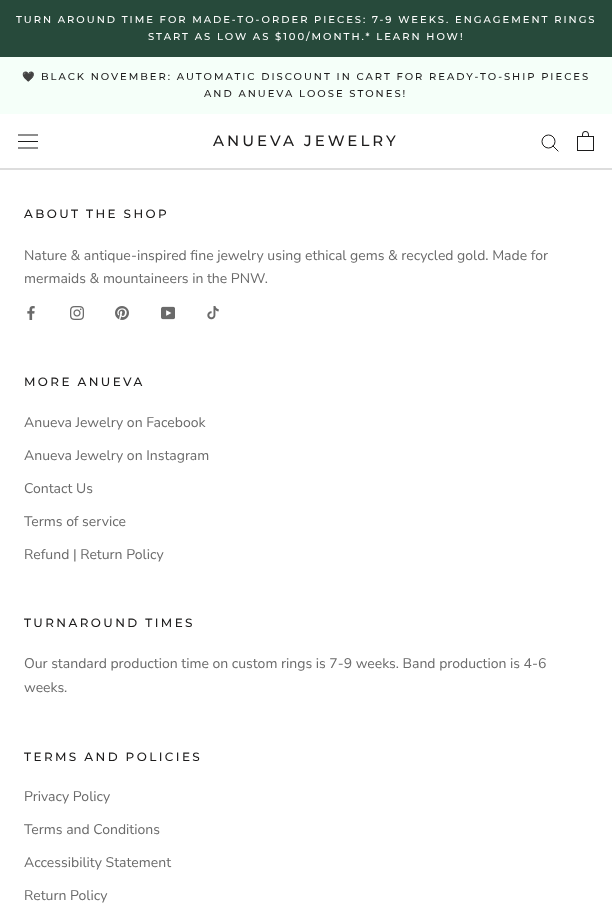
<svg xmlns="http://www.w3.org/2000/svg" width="612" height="916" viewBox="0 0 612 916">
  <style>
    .t1 { font: 500 10px Montserrat; letter-spacing: 2px; fill: #fff; }
    .t2 { font: 10px Noto Color Emoji; letter-spacing: 2px; fill: #1c1b1b; }
    .t3 { font: 500 10px Montserrat; letter-spacing: 2px; fill: #1c1b1b; }
    .t4 { font: 500 15px Montserrat; letter-spacing: 3px; fill: #1c1b1b; }
    .t5 { font: 500 12px Montserrat; letter-spacing: 2.4px; fill: #1c1b1b; }
    .t6 { font: 14px Nunito Sans; fill: #6a6a6a; }
  </style>
  <rect width="100%" height="100%" fill="#fff"/>
  <rect x="0" y="0" width="612" height="57" fill="#274a3b"/>
  <text x="16" y="23" class="t1">TURN AROUND TIME FOR MADE-TO-ORDER PIECES: 7-9 WEEKS. ENGAGEMENT RINGS</text>
  <text x="148" y="40" class="t1">START AS LOW AS $100/MONTH.* LEARN HOW!</text>
  <rect x="0" y="57" width="612" height="57" fill="#f5fff9"/>
  <text x="22" y="80" class="t2">🖤</text>
  <text x="41" y="80" class="t3">BLACK NOVEMBER: AUTOMATIC DISCOUNT IN CART FOR READY-TO-SHIP PIECES</text>
  <text x="204" y="97" class="t3">AND ANUEVA LOOSE STONES!</text>
  <image x="18" y="134" width="20" height="15" href="images/1.png"/>
  <text x="213" y="146" class="t4">ANUEVA JEWELRY</text>
  <path d="M558 151L553 146" fill="none" stroke="#1c1b1b" stroke-linecap="square"/>
  <circle cx="548.5" cy="141.5" r="6.5" fill="none" stroke="#1c1b1b"/>
  <image x="577" y="131" width="17" height="20" href="images/2.png"/>
  <rect x="0" y="168" width="612" height="2" fill="#ddd"/>
  <text x="24" y="218" class="t5">ABOUT THE SHOP</text>
  <text x="24" y="260" class="t6">Nature &amp; antique-inspired fine jewelry using ethical gems &amp; recycled gold. Made for</text>
  <text x="24" y="283" class="t6">mermaids &amp; mountaineers in the PNW.</text>
  <image x="27" y="306" width="8" height="14" href="images/3.png"/>
  <image x="70" y="306" width="14" height="14" href="images/4.png"/>
  <image x="115" y="306" width="14" height="14" href="images/5.png"/>
  <image x="161" y="306" width="14" height="14" href="images/6.png"/>
  <image x="207" y="306" width="12" height="14" href="images/7.png"/>
  <text x="24" y="386" class="t5">MORE ANUEVA</text>
  <text x="24" y="427" class="t6">Anueva Jewelry on Facebook</text>
  <text x="24" y="460" class="t6">Anueva Jewelry on Instagram</text>
  <text x="24" y="493" class="t6">Contact Us</text>
  <text x="24" y="526" class="t6">Terms of service</text>
  <text x="24" y="559" class="t6">Refund | Return Policy</text>
  <text x="24" y="627" class="t5">TURNAROUND TIMES</text>
  <text x="24" y="668" class="t6">Our standard production time on custom rings is 7-9 weeks. Band production is 4-6</text>
  <text x="24" y="692" class="t6">weeks.</text>
  <text x="24" y="761" class="t5">TERMS AND POLICIES</text>
  <text x="24" y="801" class="t6">Privacy Policy</text>
  <text x="24" y="834" class="t6">Terms and Conditions</text>
  <text x="24" y="867" class="t6">Accessibility Statement</text>
  <text x="24" y="900" class="t6">Return Policy</text>
</svg>
